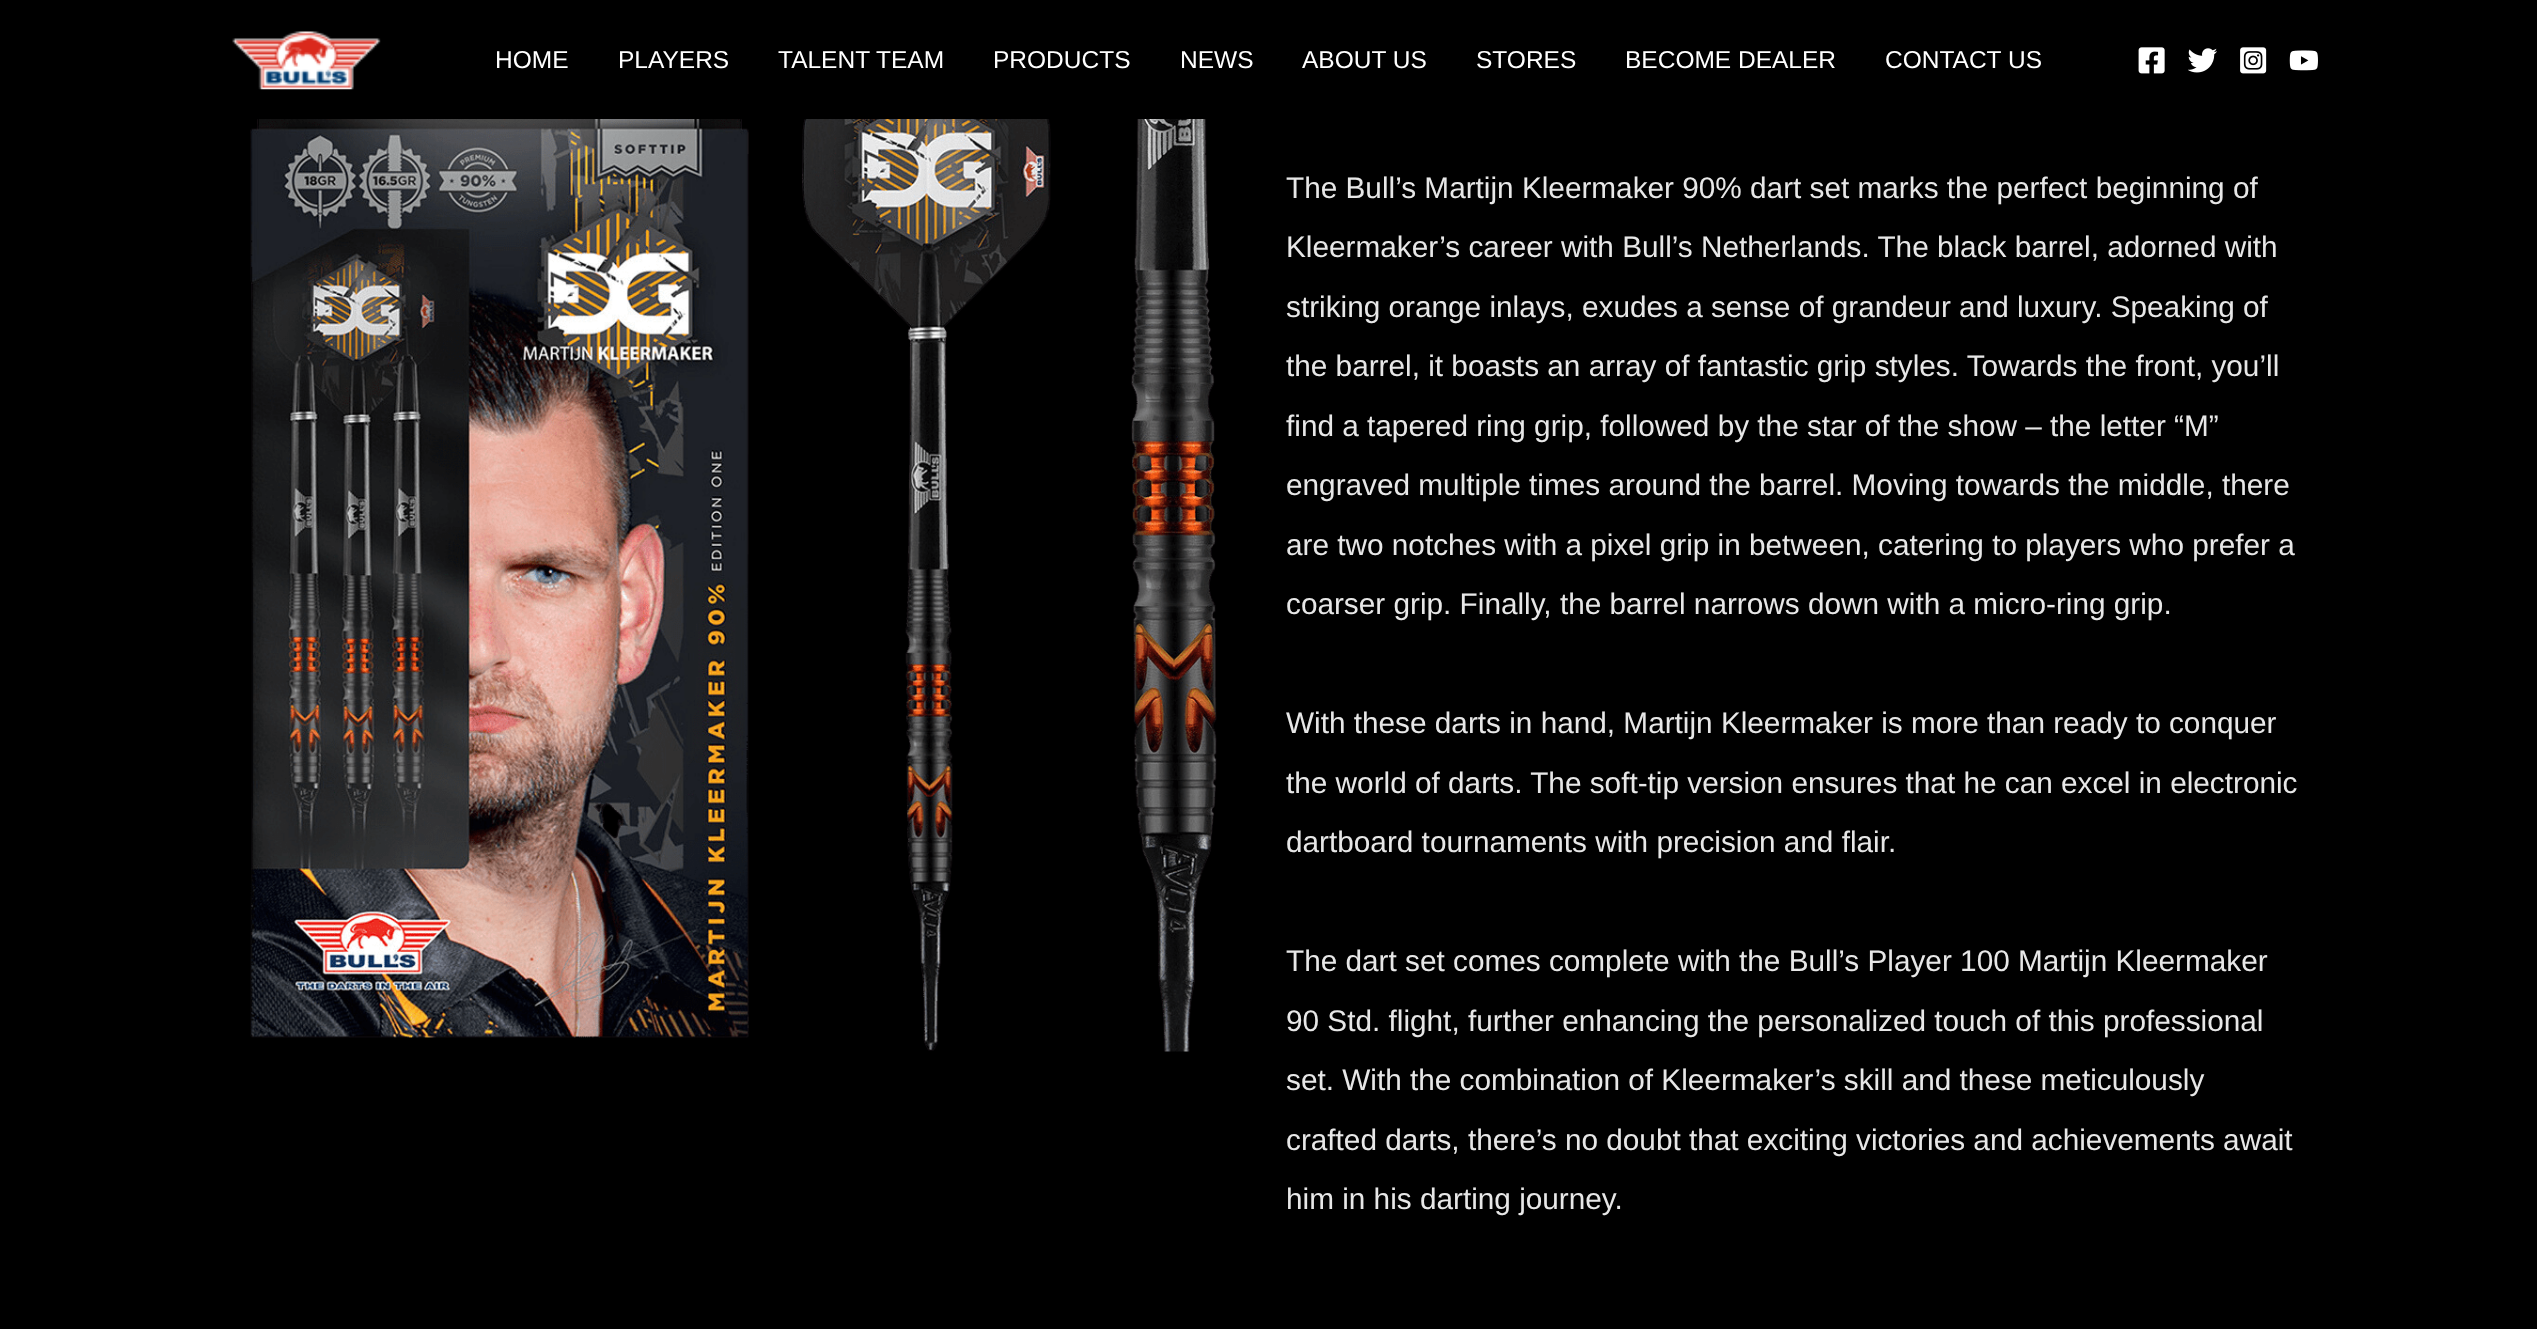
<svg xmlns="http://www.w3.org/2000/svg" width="2537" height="1329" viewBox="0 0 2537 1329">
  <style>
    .t1 { font: 24.5px Liberation Sans; fill: #fff; }
    .t2 { font: 29.75px Liberation Sans; fill: #e7e7e7; }
  </style>
  <rect width="100%" height="100%" fill="#000"/>
  <image x="232" y="31" width="149" height="59" href="images/1.png"/>
  <text x="495" y="68" class="t1">HOME</text>
  <text x="618" y="68" class="t1">PLAYERS</text>
  <text x="778" y="68" class="t1">TALENT TEAM</text>
  <text x="993" y="68" class="t1">PRODUCTS</text>
  <text x="1180" y="68" class="t1">NEWS</text>
  <text x="1302" y="68" class="t1">ABOUT US</text>
  <text x="1476" y="68" class="t1">STORES</text>
  <text x="1625" y="68" class="t1">BECOME DEALER</text>
  <text x="1885" y="68" class="t1">CONTACT US</text>
  <image x="2138" y="47" width="27" height="27" href="images/2.png"/>
  <image x="2188" y="48" width="29" height="25" href="images/3.png"/>
  <image x="2240" y="47" width="27" height="27" href="images/4.png"/>
  <image x="2289" y="50" width="29" height="21" href="images/5.png"/>
  <image x="250" y="119" width="967" height="933" href="images/6.png"/>
  <text x="1286" y="198" class="t2">The Bull’s Martijn Kleermaker 90% dart set marks the perfect beginning of</text>
  <text x="1286" y="257" class="t2">Kleermaker’s career with Bull’s Netherlands. The black barrel, adorned with</text>
  <text x="1286" y="317" class="t2">striking orange inlays, exudes a sense of grandeur and luxury. Speaking of</text>
  <text x="1286" y="376" class="t2">the barrel, it boasts an array of fantastic grip styles. Towards the front, you’ll</text>
  <text x="1286" y="436" class="t2">find a tapered ring grip, followed by the star of the show – the letter “M”</text>
  <text x="1286" y="495" class="t2">engraved multiple times around the barrel. Moving towards the middle, there</text>
  <text x="1286" y="555" class="t2">are two notches with a pixel grip in between, catering to players who prefer a</text>
  <text x="1286" y="614" class="t2">coarser grip. Finally, the barrel narrows down with a micro-ring grip.</text>
  <text x="1286" y="733" class="t2">With these darts in hand, Martijn Kleermaker is more than ready to conquer</text>
  <text x="1286" y="793" class="t2">the world of darts. The soft-tip version ensures that he can excel in electronic</text>
  <text x="1286" y="852" class="t2">dartboard tournaments with precision and flair.</text>
  <text x="1286" y="971" class="t2">The dart set comes complete with the Bull’s Player 100 Martijn Kleermaker</text>
  <text x="1286" y="1031" class="t2">90 Std. flight, further enhancing the personalized touch of this professional</text>
  <text x="1286" y="1090" class="t2">set. With the combination of Kleermaker’s skill and these meticulously</text>
  <text x="1286" y="1150" class="t2">crafted darts, there’s no doubt that exciting victories and achievements await</text>
  <text x="1286" y="1209" class="t2">him in his darting journey.</text>
</svg>
